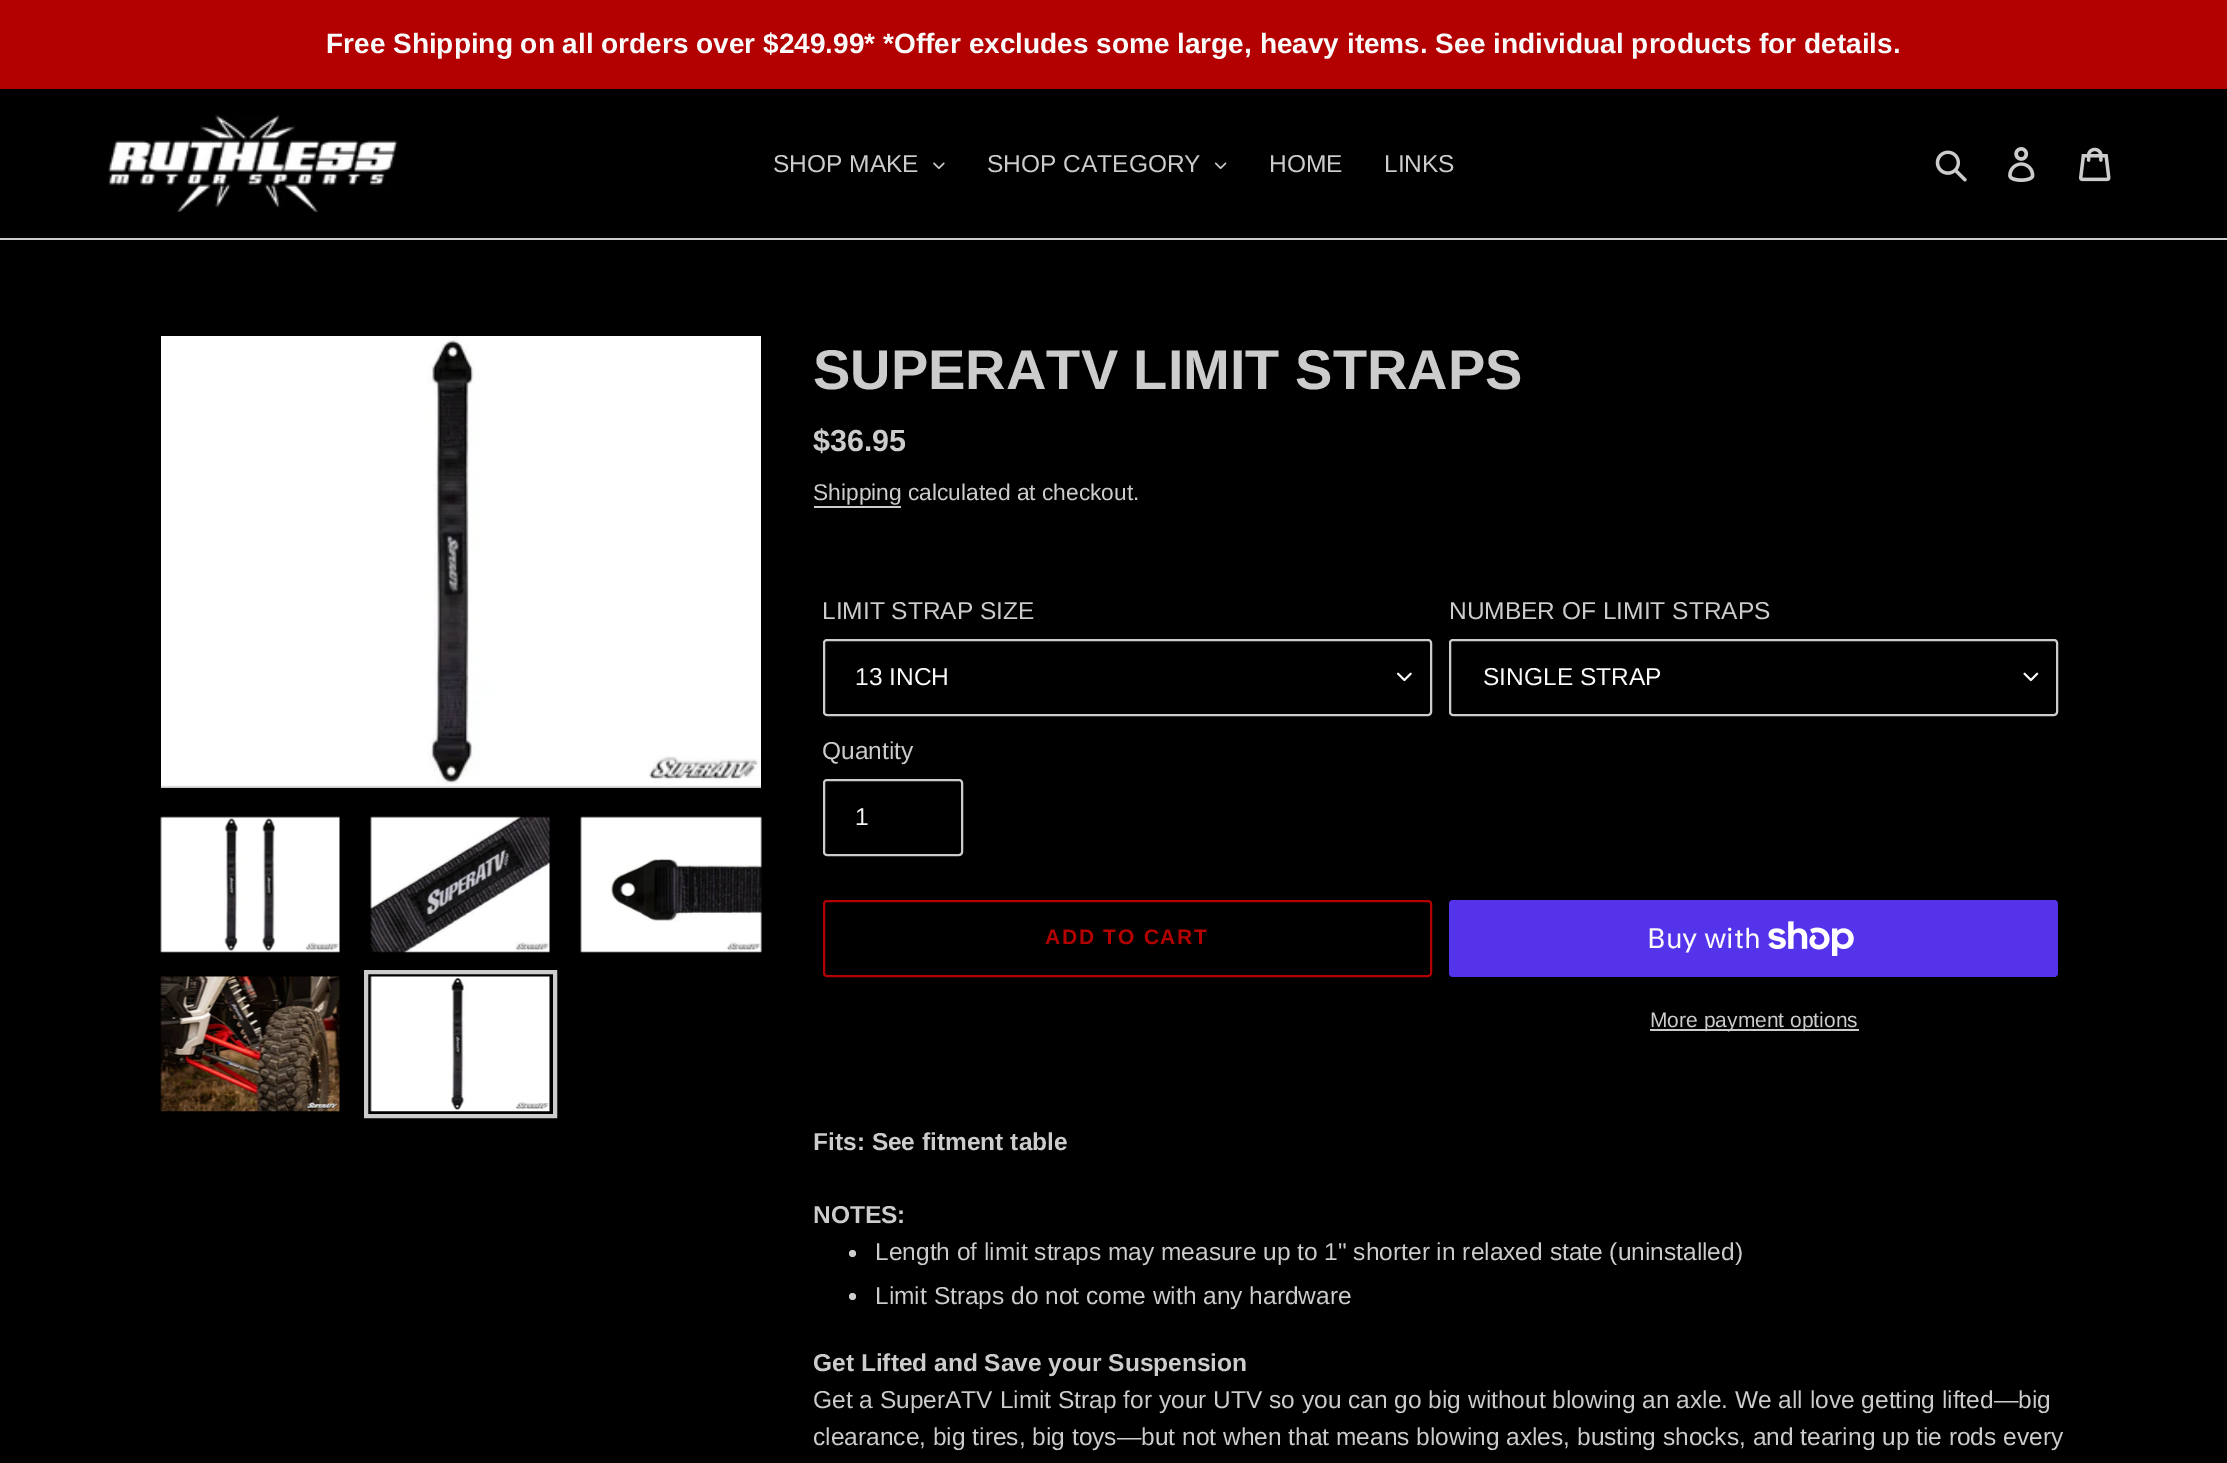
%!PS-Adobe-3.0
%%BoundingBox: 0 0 2227 1463
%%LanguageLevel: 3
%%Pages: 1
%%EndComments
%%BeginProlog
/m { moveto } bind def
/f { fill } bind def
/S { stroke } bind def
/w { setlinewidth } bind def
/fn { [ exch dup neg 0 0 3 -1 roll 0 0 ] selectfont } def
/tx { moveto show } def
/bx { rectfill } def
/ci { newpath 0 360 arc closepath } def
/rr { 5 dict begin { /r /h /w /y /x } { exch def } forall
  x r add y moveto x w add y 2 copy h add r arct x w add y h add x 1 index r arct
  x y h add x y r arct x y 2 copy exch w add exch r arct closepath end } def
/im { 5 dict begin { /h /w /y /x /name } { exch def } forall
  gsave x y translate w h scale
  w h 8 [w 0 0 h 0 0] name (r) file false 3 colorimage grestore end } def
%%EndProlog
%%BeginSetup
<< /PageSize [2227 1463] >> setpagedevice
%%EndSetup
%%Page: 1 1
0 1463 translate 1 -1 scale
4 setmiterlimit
0 setgray
0 0 2227 1463 bx
0.702 0 0 setrgbcolor
0 0 2227 89 bx
/LiberationSans-Bold 28 fn
0.98 setgray
(Free Shipping on all orders over $249.99* *Offer excludes some large, heavy items. See individual products for details.) 326 53 tx
0.8 setgray
0 238 2227 2 bx
(image0.raw) 108 115 290 97 im
/LiberationSans-Regular 24.5 fn
(SHOP MAKE) 773 172 tx
(image1.raw) 933 162 12 7 im
(SHOP CATEGORY) 987 172 tx
(image2.raw) 1215 162 12 7 im
(HOME) 1269 172 tx
(LINKS) 1384 172 tx
(image3.raw) 1935 150 32 32 im
(image4.raw) 2008 147 27 35 im
(image5.raw) 2079 147 32 35 im
(image6.raw) 161 336 600 452 im
(image7.raw) 160 816 180 137 im
(image8.raw) 370 816 180 137 im
(image9.raw) 580 816 182 137 im
(image10.raw) 160 976 180 136 im
4 w
366 972 189 144 rectstroke
(image11.raw) 370 976 180 136 im
/LiberationSans-Bold 56 fn
(SUPERATV LIMIT STRAPS) 813 389 tx
/LiberationSans-Bold 30.5 fn
($36.95) 813 451 tx
/LiberationSans-Regular 22.75 fn
(Shipping calculated at checkout.) 813 500 tx
814 506 87 2 bx
/LiberationSans-Regular 24.5 fn
(LIMIT STRAP SIZE) 822 619 tx
(image12.raw) 1397 672 15 10 im
2 w
824 640 607 75 3 rr S
0.98 setgray
(13 INCH) 855 685 tx
0.8 setgray
(NUMBER OF LIMIT STRAPS) 1449 619 tx
(image13.raw) 2023 672 16 10 im
1450 640 607 75 3 rr S
0.98 setgray
(SINGLE STRAP) 1483 685 tx
0.8 setgray
(Quantity) 822 759 tx
824 780 138 75 3 rr S
0.98 setgray
(1) 855 825 tx
0.702 0 0 setrgbcolor
824 901 607 75 3 rr S
/LiberationSans-Bold 21 fn
1045 944 m 1.75 0 (ADD TO CART) ashow
0.329 0.2 0.922 setrgbcolor
1449 900 609 77 4 rr f
/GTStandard-Regular 28 fn
0.98 setgray
(Buy with) 1647 948 tx
(image14.raw) 1768 921 86 35 im
0.8 setgray
1650 1029 209 2 bx
/LiberationSans-Regular 21 fn
(More payment options) 1650 1027 tx
/LiberationSans-Bold 24.5 fn
(Fits: See fitment table) 813 1150 tx
(NOTES:) 813 1223 tx
852.5 1253.5 3.5 ci f
/LiberationSans-Regular 24.5 fn
(Length of limit straps may measure up to 1" shorter in relaxed state \(uninstalled\)) 875 1260 tx
852.5 1296.5 3.5 ci f
(Limit Straps do not come with any hardware) 875 1304 tx
/LiberationSans-Bold 24.5 fn
(Get Lifted and Save your Suspension) 813 1371 tx
/LiberationSans-Regular 24.5 fn
(Get a SuperATV Limit Strap for your UTV so you can go big without blowing an axle. We all love getting lifted—big) 813 1408 tx
(clearance, big tires, big toys—but not when that means blowing axles, busting shocks, and tearing up tie rods every) 813 1445 tx
showpage
%%EOF
